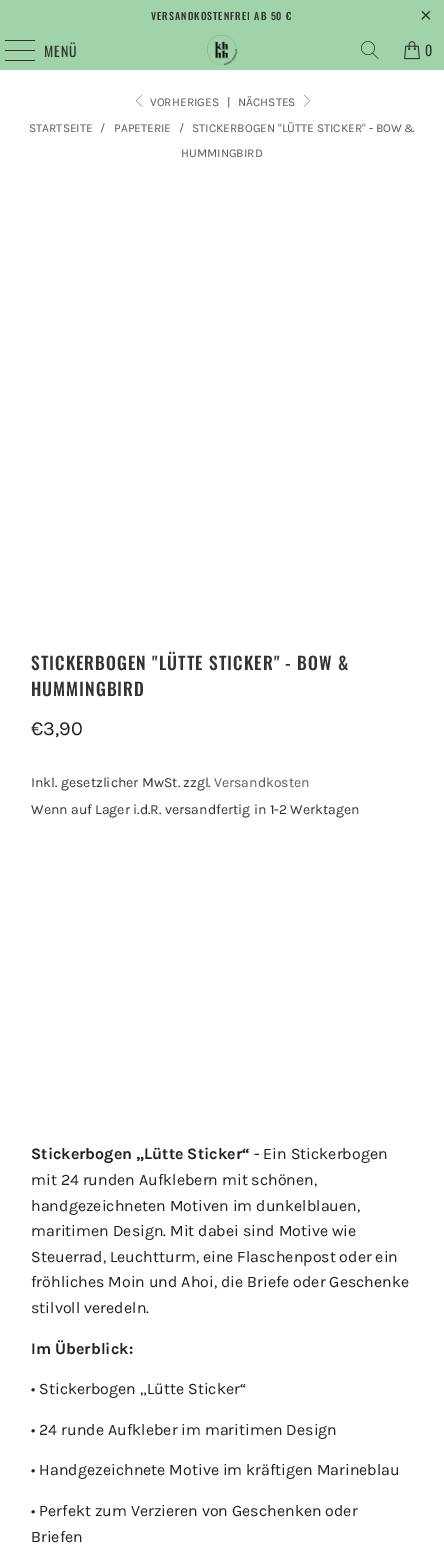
%!PS-Adobe-3.0
%%BoundingBox: 0 0 444 1558
%%LanguageLevel: 3
%%Pages: 1
%%EndComments
%%BeginProlog
/m { moveto } bind def
/f { fill } bind def
/fn { [ exch dup neg 0 0 3 -1 roll 0 0 ] selectfont } def
/tx { moveto show } def
/bx { rectfill } def
/rr { 5 dict begin { /r /h /w /y /x } { exch def } forall
  x r add y moveto x w add y 2 copy h add r arct x w add y h add x 1 index r arct
  x y h add x y r arct x y 2 copy exch w add exch r arct closepath end } def
/im { 5 dict begin { /h /w /y /x /name } { exch def } forall
  gsave x y translate w h scale
  w h 8 [w 0 0 h 0 0] name (r) file false 3 colorimage grestore end } def
%%EndProlog
%%BeginSetup
<< /PageSize [444 1558] >> setpagedevice
%%EndSetup
%%Page: 1 1
0 1558 translate 1 -1 scale
4 setmiterlimit
1 setgray
0 0 444 1558 bx
0.631 0.827 0.663 setrgbcolor
0 0 444 70 bx
/Oswald-Medium 10 fn
0.2 setgray
151 20 m 1 0 (VERSANDKOSTENFREI AB 50 €) ashow
/LiberationSans-Regular 20 fn
420 22 m 1 0 (×) ashow
5 40 30 1 0.5 rr f
5 50 30 1 0.5 rr f
5 60 30 1 0.5 rr f
/Oswald-Regular 14 fn
44 57 m 1 0 (MENÜ) ashow
(image0.raw) 207 35 31 30 im
(image1.raw) 361 41 18 18 im
(image2.raw) 404 41 16 19 im
425 56 m 1 0 (0) ashow
(image3.raw) 135 94 8 13 im
/Karla-Regular 12 fn
0.353 setgray
(VORHERIGES) 150 106 tx
(|) 227 106 tx
(NÄCHSTES) 238 106 tx
(image4.raw) 303 94 8 13 im
(STARTSEITE) 29 132 tx
(/) 100 132 tx
(PAPETERIE) 114 132 tx
(/) 179 132 tx
(STICKERBOGEN "LÜTTE STICKER" - BOW &) 192 132 tx
(HUMMINGBIRD) 181 157 tx
/Oswald-Medium 17.6 fn
0.2 setgray
31 670 m 1 0 (STICKERBOGEN "LÜTTE STICKER" - BOW &) ashow
31 696 m 1 0 (HUMMINGBIRD) ashow
/Karla-Regular 20 fn
0.129 setgray
(€3,90) 31 735 tx
/Karla-Regular 14 fn
0.2 setgray
(Inkl. gesetzlicher MwSt. zzgl.) 31 787 tx
0.353 setgray
(Versandkosten) 214 787 tx
0.2 setgray
(Wenn auf Lager i.d.R. versandfertig in 1-2 Werktagen) 31 814 tx
/Karla-Bold 16 fn
0.129 setgray
(Stickerbogen „Lütte Sticker“) 31 1159 tx
/Karla-Regular 16 fn
(- Ein Stickerbogen) 254 1159 tx
(mit 24 runden Aufklebern mit schönen,) 31 1185 tx
(handgezeichneten Motiven im dunkelblauen,) 31 1211 tx
(maritimen Design. Mit dabei sind Motive wie) 31 1236 tx
(Steuerrad, Leuchtturm, eine Flaschenpost oder ein) 31 1262 tx
(fröhliches Moin und Ahoi, die Briefe oder Geschenke) 31 1287 tx
(stilvoll veredeln.) 31 1313 tx
/Karla-Bold 16 fn
(Im Überblick:) 31 1354 tx
/Karla-Regular 16 fn
(• Stickerbogen „Lütte Sticker“) 31 1394 tx
(• 24 runde Aufkleber im maritimen Design) 31 1435 tx
(• Handgezeichnete Motive im kräftigen Marineblau) 31 1475 tx
(• Perfekt zum Verzieren von Geschenken oder) 31 1516 tx
(Briefen) 31 1542 tx
showpage
%%EOF
